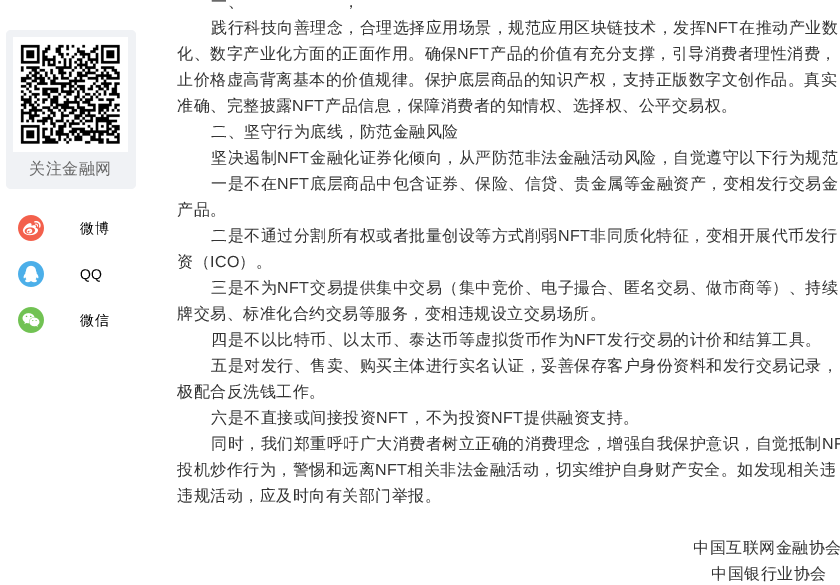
%!PS-Adobe-3.0
%%BoundingBox: 0 0 840 585
%%LanguageLevel: 3
%%Pages: 1
%%EndComments
%%BeginProlog
/m { moveto } bind def
/f { fill } bind def
/q { gsave } bind def
/Q { grestore } bind def
/fn { [ exch dup neg 0 0 3 -1 roll 0 0 ] selectfont } def
/bx { rectfill } def
/rr { 5 dict begin { /r /h /w /y /x } { exch def } forall
  x r add y moveto x w add y 2 copy h add r arct x w add y h add x 1 index r arct
  x y h add x y r arct x y 2 copy exch w add exch r arct closepath end } def
/im { 5 dict begin { /h /w /y /x /name } { exch def } forall
  gsave x y translate w h scale
  w h 8 [w 0 0 h 0 0] name (r) file false 3 colorimage grestore end } def
%%EndProlog
%%BeginSetup
<< /PageSize [840 585] >> setpagedevice
%%EndSetup
%%Page: 1 1
0 585 translate 1 -1 scale
4 setmiterlimit
1 setgray
0 0 840 585 bx
0.941 0.949 0.961 setrgbcolor
6 30 130 159 5 rr f
(image0.raw) 13 37 115 115 im
/WenQuanYiZenHei-Medium 16 fn
0.4 setgray
29 174 m 0.5 0 (关注金融网) ashow
(image1.raw) 18 215 26 26 im
/WenQuanYiZenHei-Medium 14 fn
0 setgray
80 233 m 0.5 0 (微博) ashow
(image2.raw) 18 261 26 26 im
/LiberationSans-Regular 14 fn
80 279 m 0.5 0 (QQ) ashow
(image3.raw) 18 307 26 26 im
/WenQuanYiZenHei-Medium 14 fn
80 325 m 0.5 0 (微信) ashow
/WenQuanYiZenHei-Medium 16 fn
0.2 setgray
211 7 m 0.5 0 (一、) ashow
343 7 m 0.5 0 (，) ashow
211 33 m 0.5 0 (践行科技向善理念，合理选择应用场景，规范应用区块链技术，发挥) ashow
/LiberationSans-Regular 16 fn
706 33 m 0.5 0 (NFT) ashow
/WenQuanYiZenHei-Medium 16 fn
739 33 m 0.5 0 (在推动产业数) ashow
177 59 m 0.5 0 (化、数字产业化方面的正面作用。确保) ashow
/LiberationSans-Regular 16 fn
457 59 m 0.5 0 (NFT) ashow
/WenQuanYiZenHei-Medium 16 fn
490 59 m 0.5 0 (产品的价值有充分支撑，引导消费者理性消费，) ashow
177 85 m 0.5 0 (止价格虚高背离基本的价值规律。保护底层商品的知识产权，支持正版数字文创作品。真实) ashow
177 111 m 0.5 0 (准确、完整披露) ashow
/LiberationSans-Regular 16 fn
292 111 m 0.5 0 (NFT) ashow
/WenQuanYiZenHei-Medium 16 fn
325 111 m 0.5 0 (产品信息，保障消费者的知情权、选择权、公平交易权。) ashow
211 137 m 0.5 0 (二、坚守行为底线，防范金融风险) ashow
211 163 m 0.5 0 (坚决遏制) ashow
/LiberationSans-Regular 16 fn
277 163 m 0.5 0 (NFT) ashow
/WenQuanYiZenHei-Medium 16 fn
310 163 m 0.5 0 (金融化证券化倾向，从严防范非法金融活动风险，自觉遵守以下行为规范) ashow
211 189 m 0.5 0 (一是不在) ashow
/LiberationSans-Regular 16 fn
277 189 m 0.5 0 (NFT) ashow
/WenQuanYiZenHei-Medium 16 fn
310 189 m 0.5 0 (底层商品中包含证券、保险、信贷、贵金属等金融资产，变相发行交易金) ashow
177 215 m 0.5 0 (产品。) ashow
211 241 m 0.5 0 (二是不通过分割所有权或者批量创设等方式削弱) ashow
/LiberationSans-Regular 16 fn
558 241 m 0.5 0 (NFT) ashow
/WenQuanYiZenHei-Medium 16 fn
590 241 m 0.5 0 (非同质化特征，变相开展代币发行) ashow
177 267 m 0.5 0 (资（) ashow
/LiberationSans-Regular 16 fn
210 267 m 0.5 0 (ICO) ashow
/WenQuanYiZenHei-Medium 16 fn
239 267 m 0.5 0 (）。) ashow
211 293 m 0.5 0 (三是不为) ashow
/LiberationSans-Regular 16 fn
277 293 m 0.5 0 (NFT) ashow
/WenQuanYiZenHei-Medium 16 fn
310 293 m 0.5 0 (交易提供集中交易（集中竞价、电子撮合、匿名交易、做市商等）、持续) ashow
177 319 m 0.5 0 (牌交易、标准化合约交易等服务，变相违规设立交易场所。) ashow
211 345 m 0.5 0 (四是不以比特币、以太币、泰达币等虚拟货币作为) ashow
/LiberationSans-Regular 16 fn
574 345 m 0.5 0 (NFT) ashow
/WenQuanYiZenHei-Medium 16 fn
607 345 m 0.5 0 (发行交易的计价和结算工具。) ashow
211 371 m 0.5 0 (五是对发行、售卖、购买主体进行实名认证，妥善保存客户身份资料和发行交易记录，) ashow
177 397 m 0.5 0 (极配合反洗钱工作。) ashow
211 423 m 0.5 0 (六是不直接或间接投资) ashow
/LiberationSans-Regular 16 fn
376 423 m 0.5 0 (NFT) ashow
/WenQuanYiZenHei-Medium 16 fn
409 423 m 0.5 0 (，不为投资) ashow
/LiberationSans-Regular 16 fn
491 423 m 0.5 0 (NFT) ashow
/WenQuanYiZenHei-Medium 16 fn
524 423 m 0.5 0 (提供融资支持。) ashow
211 449 m 0.5 0 (同时，我们郑重呼吁广大消费者树立正确的消费理念，增强自我保护意识，自觉抵制) ashow
/LiberationSans-Regular 16 fn
822 449 m 0.5 0 (NF) ashow
q
177 0 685 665 rectclip
/WenQuanYiZenHei-Medium 16 fn
177 475 m 0.5 0 (投机炒作行为，警惕和远离) ashow
Q
375 475 m 0.5 0 (NFT) ashow
/WenQuanYiZenHei-Medium 16 fn
407 475 m 0.5 0 (相关非法金融活动，切实维护自身财产安全。如发现相关违) ashow
177 501 m 0.5 0 (违规活动，应及时向有关部门举报。) ashow
693 553 m 0.5 0 (中国互联网金融协会) ashow
711 579 m 0.5 0 (中国银行业协会) ashow
showpage
%%EOF
